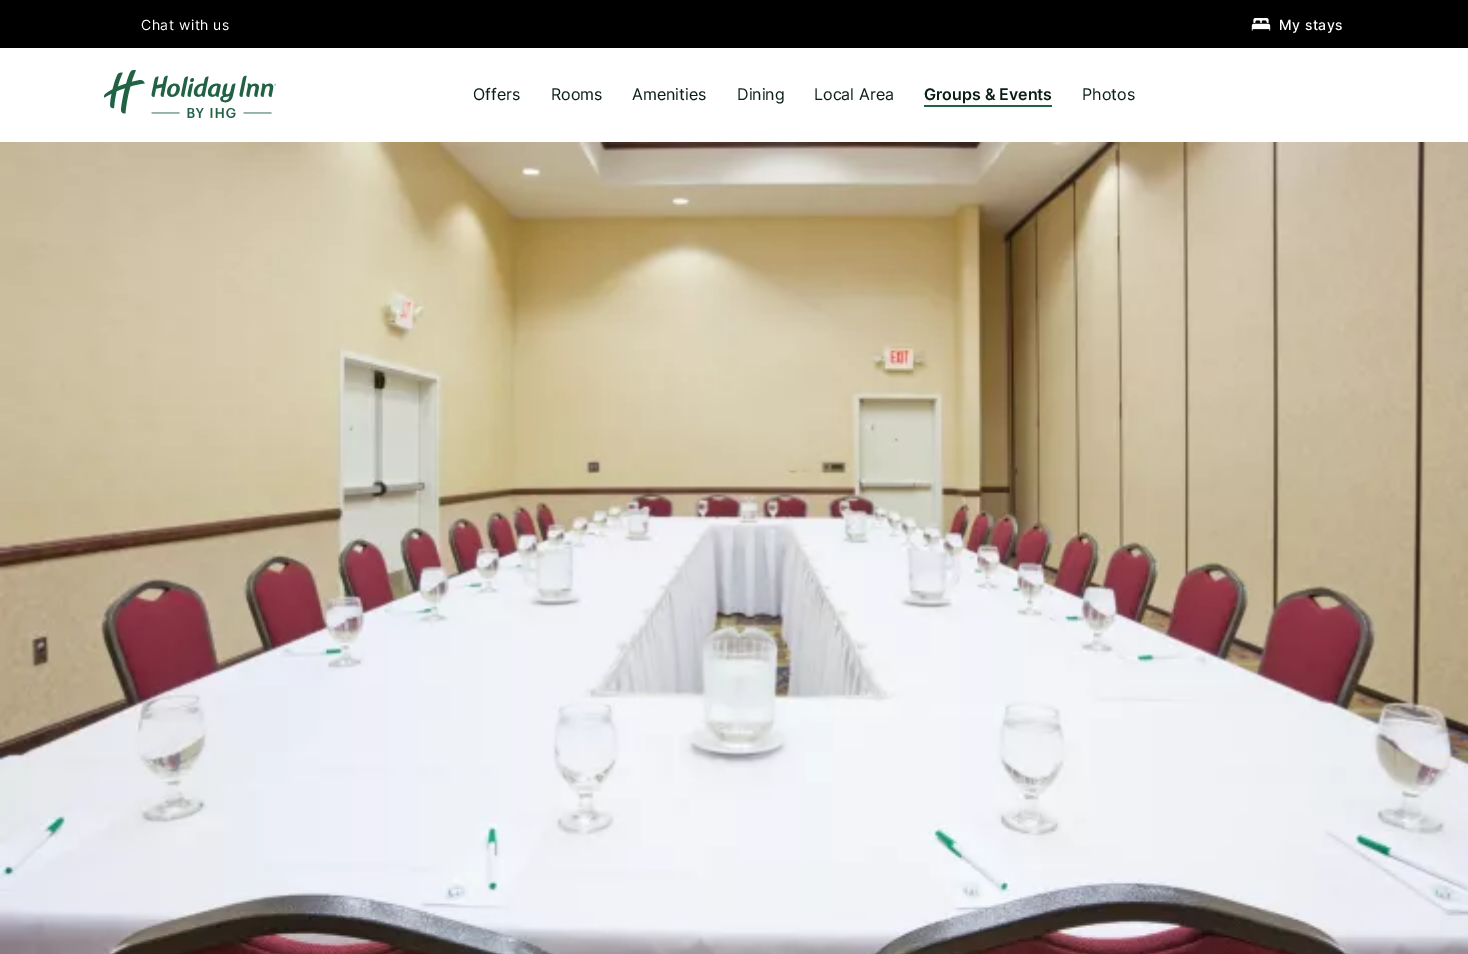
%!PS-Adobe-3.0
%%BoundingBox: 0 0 1468 954
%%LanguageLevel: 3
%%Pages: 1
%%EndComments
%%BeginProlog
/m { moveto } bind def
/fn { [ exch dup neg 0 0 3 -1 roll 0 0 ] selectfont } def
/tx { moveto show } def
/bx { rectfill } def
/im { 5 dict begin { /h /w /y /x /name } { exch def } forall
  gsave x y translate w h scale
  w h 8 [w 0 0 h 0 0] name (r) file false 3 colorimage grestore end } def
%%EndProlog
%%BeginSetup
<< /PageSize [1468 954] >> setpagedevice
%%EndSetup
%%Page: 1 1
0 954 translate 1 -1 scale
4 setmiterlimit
1 setgray
0 0 1468 954 bx
0 setgray
0 0 1468 48 bx
/Inter-Regular 14 fn
1 setgray
141 30 m 0.5 0 (Chat with us) ashow
(image0.raw) 1251 18 20 13 im
/Inter-Medium 14 fn
1279 30 m 0.5 0 (My stays) ashow
(image1.raw) 104 70 172 48 im
/Inter-Regular 16 fn
0.039 0.118 0.078 setrgbcolor
(Offers) 473 100 tx
(Rooms) 551 100 tx
(Amenities) 632 100 tx
(Dining) 737 100 tx
(Local Area) 814 100 tx
/Inter-SemiBold 16 fn
(Groups & Events) 924 100 tx
0.129 0.384 0.271 setrgbcolor
924 105 128 2 bx
/Inter-Regular 16 fn
0.039 0.118 0.078 setrgbcolor
(Photos) 1082 100 tx
(image2.raw) 0 142 1468 812 im
showpage
%%EOF
